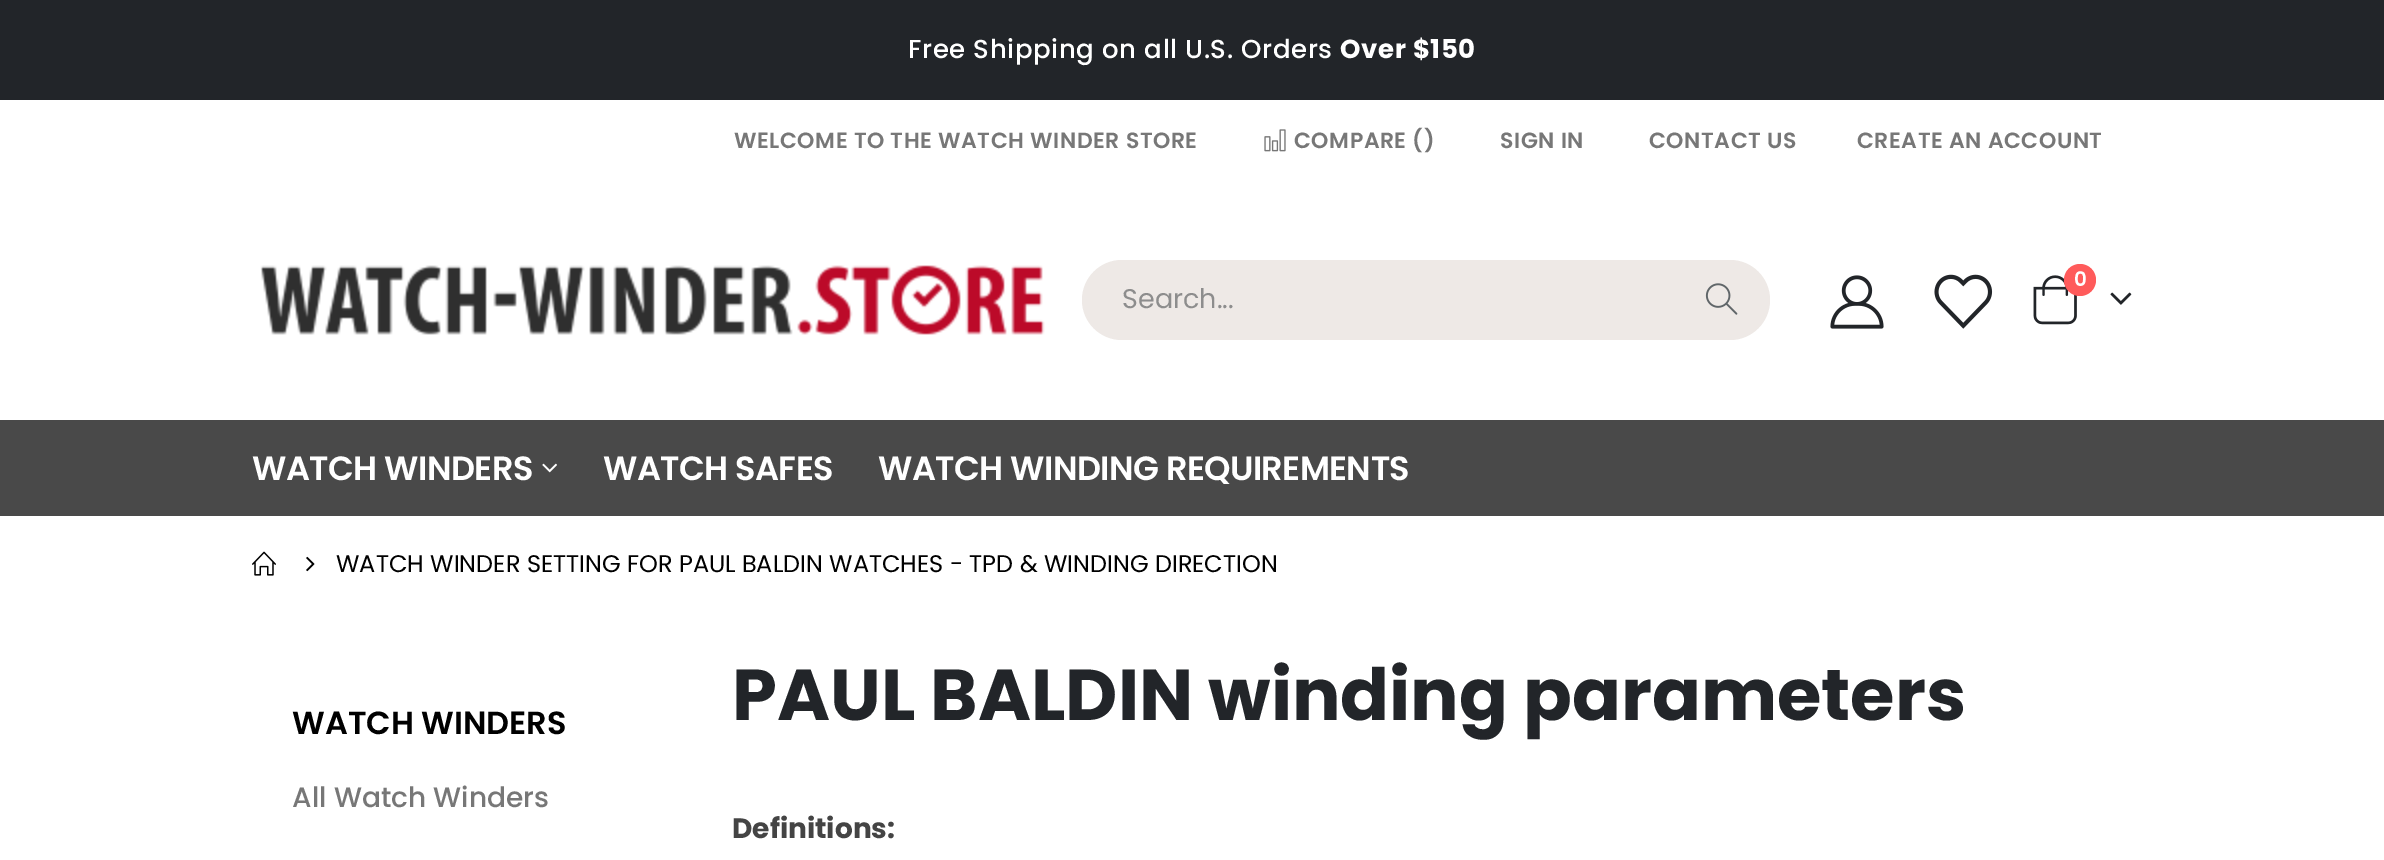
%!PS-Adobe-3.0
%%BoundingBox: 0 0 2384 860
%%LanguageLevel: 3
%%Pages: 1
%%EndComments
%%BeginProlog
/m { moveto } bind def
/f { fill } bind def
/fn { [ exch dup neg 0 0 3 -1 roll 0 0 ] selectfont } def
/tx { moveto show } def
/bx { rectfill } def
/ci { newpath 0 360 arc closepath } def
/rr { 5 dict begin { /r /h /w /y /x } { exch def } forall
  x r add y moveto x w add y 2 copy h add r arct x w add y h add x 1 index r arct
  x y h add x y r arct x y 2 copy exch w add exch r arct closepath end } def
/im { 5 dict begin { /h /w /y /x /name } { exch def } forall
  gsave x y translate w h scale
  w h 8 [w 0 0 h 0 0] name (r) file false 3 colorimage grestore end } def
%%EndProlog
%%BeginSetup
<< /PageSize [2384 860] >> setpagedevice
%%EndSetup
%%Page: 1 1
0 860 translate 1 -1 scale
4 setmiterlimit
1 setgray
0 0 2384 860 bx
0.133 0.145 0.161 setrgbcolor
0 0 2384 100 bx
/Poppins-Medium 26 fn
1 setgray
908 58 m 0.65 0 (Free Shipping on all U.S. Orders) ashow
/Poppins-Bold 26 fn
1340 58 m 0.65 0 (Over $150) ashow
/Poppins-SemiBold 22 fn
0.467 setgray
734 148 m 0.55 0 (WELCOME TO THE WATCH WINDER STORE) ashow
(image0.raw) 1264 129 22 23 im
1294 148 m 0.55 0 (COMPARE \(\)) ashow
1500 148 m 0.55 0 (SIGN IN) ashow
1649 148 m 0.55 0 (CONTACT US) ashow
1857 148 m 0.55 0 (CREATE AN ACCOUNT) ashow
(image1.raw) 260 265 785 70 im
(image2.raw) 1830 275 54 54 im
(image3.raw) 1934 274 59 55 im
(image4.raw) 2033 275 44 50 im
1 0.357 0.357 setrgbcolor
2080 280 16 ci f
/Poppins-SemiBold 20 fn
1 setgray
(0) 2074 286 tx
(image5.raw) 2110 292 22 13 im
0.933 0.914 0.902 setrgbcolor
1082 260 688 80 40 rr f
/Poppins-Regular 27 fn
0.553 setgray
(Search...) 1122 308 tx
(image6.raw) 1705 283 33 32 im
0.286 setgray
0 420 2384 96 bx
/Poppins-SemiBold 33.6 fn
1 setgray
252 480 m -0.6 0 (WATCH WINDERS) ashow
(image7.raw) 542 463 15 10 im
603 480 m -0.6 0 (WATCH SAFES) ashow
878 480 m -0.6 0 (WATCH WINDING REQUIREMENTS) ashow
(image8.raw) 252 551 24 25 im
(image9.raw) 306 556 9 16 im
/Poppins-Regular 24 fn
0 setgray
(WATCH WINDER SETTING FOR PAUL BALDIN WATCHES - TPD & WINDING DIRECTION) 336 572 tx
/Poppins-SemiBold 32 fn
(WATCH WINDERS) 292 734 tx
/Poppins-Medium 28 fn
0.467 setgray
(All Watch Winders) 292 807 tx
/Poppins-Bold 72 fn
0.133 0.145 0.161 setrgbcolor
(PAUL BALDIN winding parameters) 732 720 tx
/Poppins-Bold 28 fn
0.267 setgray
(Definitions:) 732 838 tx
showpage
%%EOF
